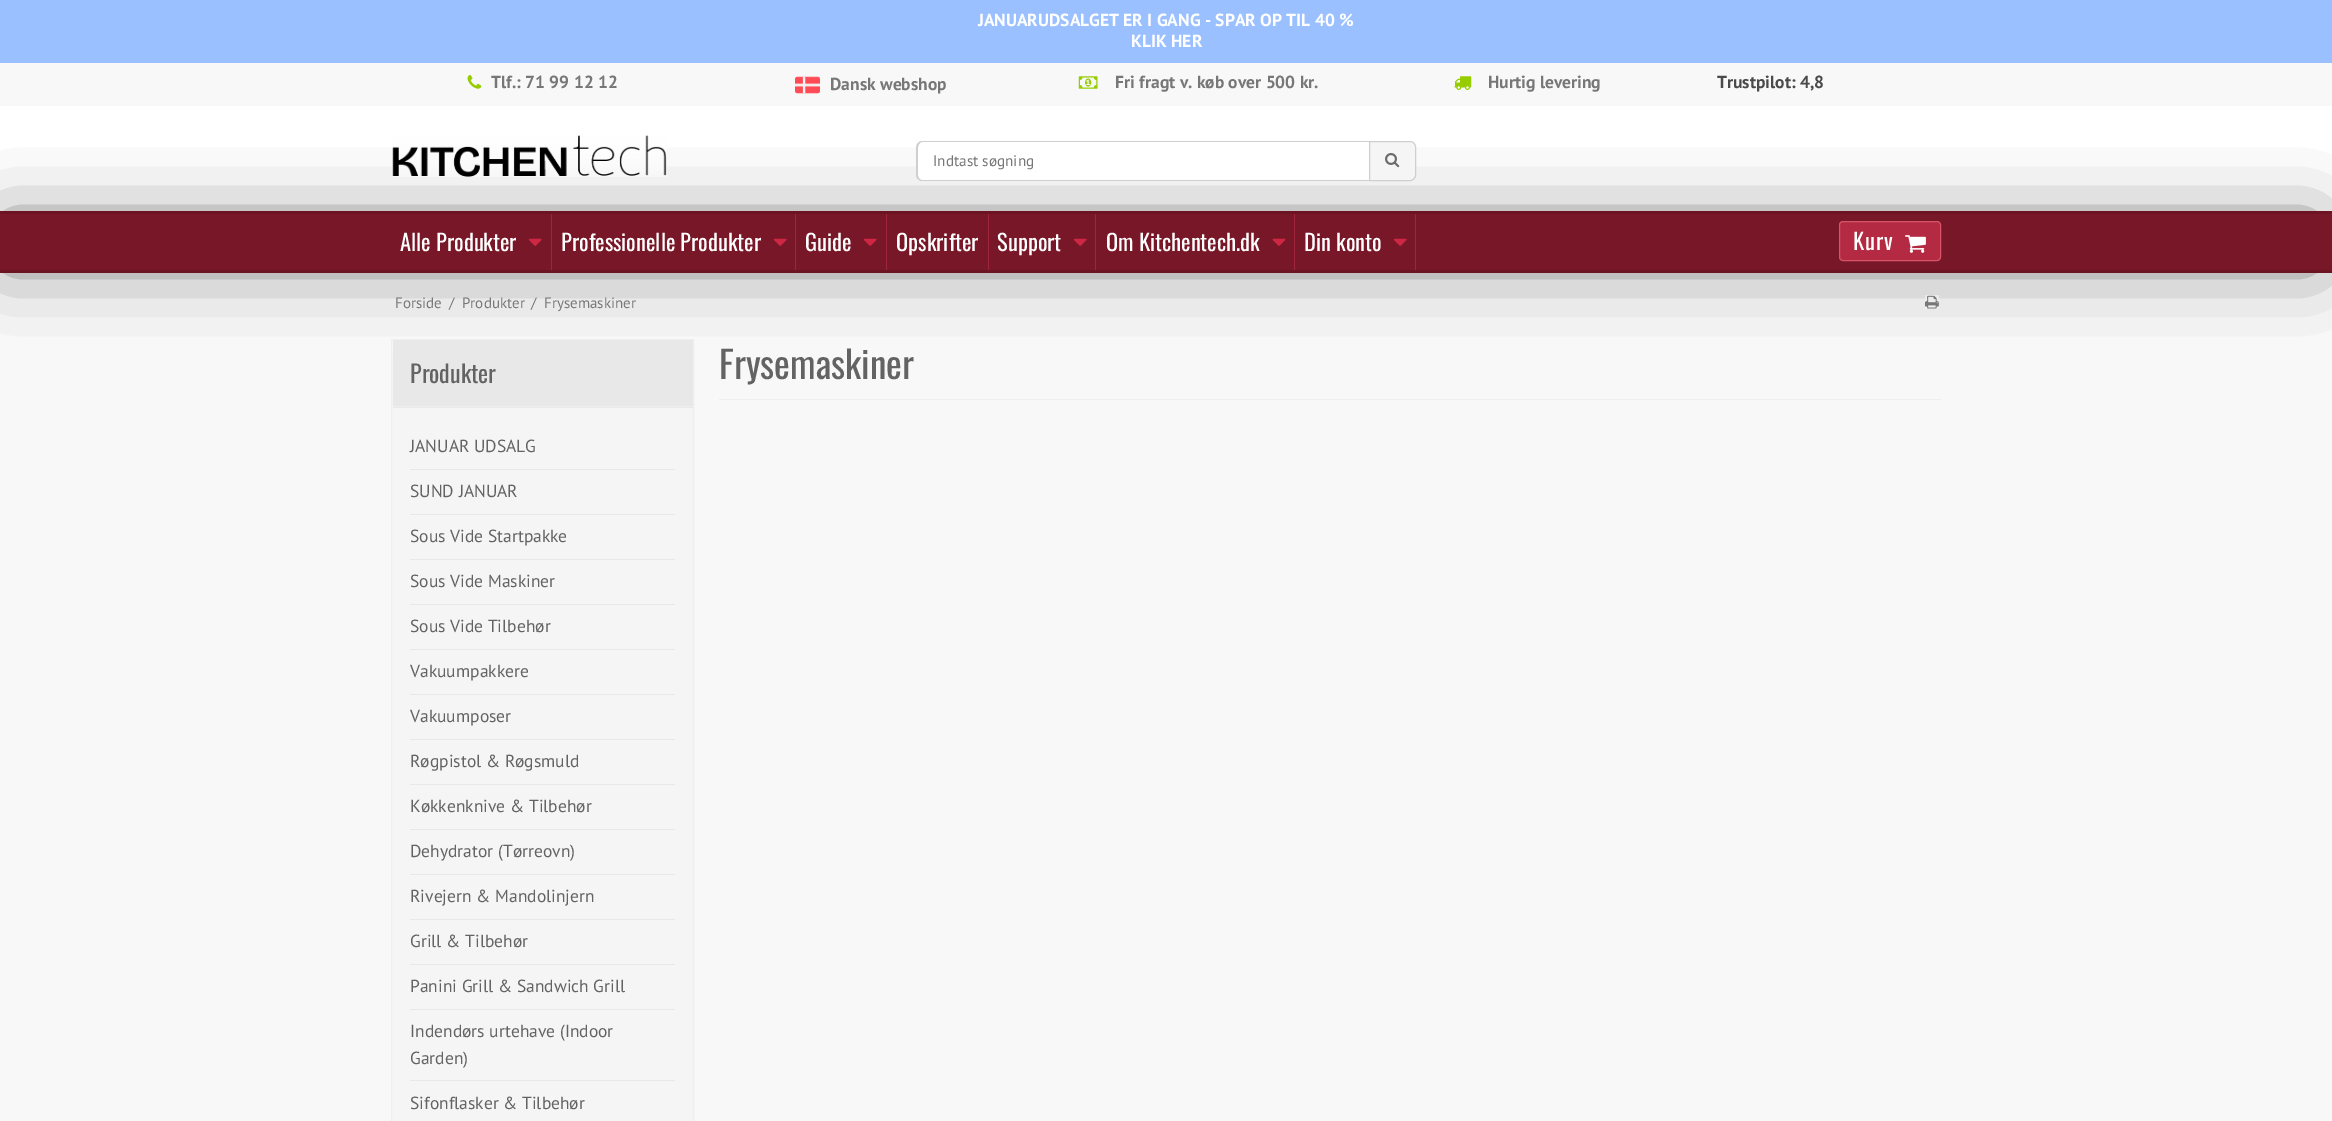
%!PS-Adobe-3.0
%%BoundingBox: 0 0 2332 1121
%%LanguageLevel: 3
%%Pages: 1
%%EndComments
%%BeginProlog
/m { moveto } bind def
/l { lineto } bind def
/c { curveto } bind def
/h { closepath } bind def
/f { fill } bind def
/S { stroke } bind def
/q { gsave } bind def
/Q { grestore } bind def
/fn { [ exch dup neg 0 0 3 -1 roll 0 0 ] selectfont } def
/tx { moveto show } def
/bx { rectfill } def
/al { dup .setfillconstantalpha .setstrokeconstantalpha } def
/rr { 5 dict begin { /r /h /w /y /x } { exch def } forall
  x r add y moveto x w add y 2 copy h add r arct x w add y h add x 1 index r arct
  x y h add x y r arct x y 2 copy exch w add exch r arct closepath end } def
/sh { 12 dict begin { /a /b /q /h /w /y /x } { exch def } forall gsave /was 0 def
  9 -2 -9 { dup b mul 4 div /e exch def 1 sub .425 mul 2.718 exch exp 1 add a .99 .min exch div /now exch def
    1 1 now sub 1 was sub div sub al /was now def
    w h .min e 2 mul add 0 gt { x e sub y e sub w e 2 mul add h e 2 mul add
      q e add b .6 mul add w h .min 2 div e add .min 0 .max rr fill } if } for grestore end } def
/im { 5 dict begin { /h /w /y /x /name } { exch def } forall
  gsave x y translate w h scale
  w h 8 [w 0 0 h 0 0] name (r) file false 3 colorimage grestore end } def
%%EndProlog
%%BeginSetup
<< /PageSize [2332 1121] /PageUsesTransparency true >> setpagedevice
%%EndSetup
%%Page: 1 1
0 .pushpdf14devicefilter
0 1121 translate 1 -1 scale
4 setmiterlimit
0.973 setgray
0 0 2332 1121 bx
0.604 0.753 1 setrgbcolor
0 0 2332 63 bx
/PTSans-Bold 17.5 fn
1 setgray
(JANUARUDSALGET ER I GANG - SPAR OP TIL 40 %) 978 26 tx
(KLIK HER) 1131 47 tx
(image0.raw) 467 75 15 14 im
0.467 setgray
(Tlf.: 71 99 12 12) 491 88 tx
(image1.raw) 795 76 25 18 im
(Dansk webshop) 830 90 tx
(image2.raw) 1078 76 20 13 im
(Fri fragt v. køb over 500 kr.) 1115 88 tx
(image3.raw) 1454 76 18 14 im
(Hurtig levering) 1488 88 tx
0.29 setgray
(Trustpilot: 4,8) 1717 88 tx
1 setgray
0 106 2332 105 bx
0 setgray
15 233 2290 18 0 38 0.75 sh
(image4.raw) 392 135 275 42 im
1 setgray
922 142 m 1376 142 l 1380 142 1382 145 1382 148 c 1382 175 l 1382 178 1380 180 1376 180 c 922 180 l 920 180 918 178 918 175 c 918 148 l 918 145 920 142 922 142 c h f
0.812 setgray
922 141 m 1376 141 l 1380 141 1382 144 1382 148 c 1382 175 l 1382 178 1380 181 1376 181 c 922 181 l 919 181 916 178 916 175 c 916 148 l 916 144 919 141 922 141 c h 922 142 m 1376 142 l 1380 142 1382 145 1382 148 c 1382 175 l 1382 178 1380 180 1376 180 c 922 180 l 920 180 918 178 918 175 c 918 148 l 918 145 920 142 922 142 c h eofill
/PTSans-Regular 15.25 fn
0.467 setgray
(Indtast søgning) 933 166 tx
0.961 setgray
1369.5 141.5 m 1410 141.5 l 1413 141.5 1415.5 144 1415.5 147 c 1415.5 175 l 1415.5 178 1413 180.5 1410 180.5 c 1369.5 180.5 l h q f Q
0.812 setgray
S
(image5.raw) 1385 153 15 15 im
0.471 0.09 0.153 setrgbcolor
0 214 2332 56 bx
0.427 0.078 0.133 setrgbcolor
0 211 2332 3 bx
0 270 2332 3 bx
0.624 0.145 0.231 setrgbcolor
551 214 1 56 bx
/Oswald-Regular 22.5 fn
1 setgray
(Alle Produkter) 400 251 tx
(image6.raw) 528 238 14 8 im
0.624 0.145 0.231 setrgbcolor
795 214 1 56 bx
1 setgray
(Professionelle Produkter) 561 251 tx
(image6.raw) 773 238 14 8 im
0.624 0.145 0.231 setrgbcolor
886 214 1 56 bx
1 setgray
(Guide) 805 251 tx
(image6.raw) 863 238 14 8 im
0.624 0.145 0.231 setrgbcolor
988 214 1 56 bx
1 setgray
(Opskrifter) 896 251 tx
0.624 0.145 0.231 setrgbcolor
1095 214 1 56 bx
1 setgray
(Support) 997 251 tx
(image6.raw) 1073 238 14 8 im
0.624 0.145 0.231 setrgbcolor
1294 214 1 56 bx
1 setgray
(Om Kitchentech.dk) 1106 251 tx
(image7.raw) 1272 238 14 8 im
0.624 0.145 0.231 setrgbcolor
1415 214 1 56 bx
1 setgray
(Din konto) 1304 251 tx
(image6.raw) 1393 238 14 8 im
0.702 0.165 0.259 setrgbcolor
1839.5 221.5 101 39 3.5 rr q f Q
0.843 0.325 0.416 setrgbcolor
S
1 setgray
1853 250 m 1 0 (Kurv) ashow
(image8.raw) 1905 235 21 18 im
/PTSans-Regular 15 fn
0.467 setgray
(Forside) 395 308 tx
(/) 449 308 tx
(Produkter) 462 308 tx
(/) 531 308 tx
(Frysemaskiner) 544 308 tx
(image9.raw) 1925 295 14 14 im
0.961 setgray
392 356 301 765 bx
0.933 setgray
391.5 339.5 302 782 rectstroke
0.91 setgray
393 340 300 68 bx
0.933 setgray
393 406 300 1 bx
/Oswald-Regular 24 fn
0.388 setgray
(Produkter) 410 383 tx
0.91 setgray
410 469 265 1 bx
/PTSans-Regular 17.5 fn
0.388 setgray
(JANUAR UDSALG) 410 452 tx
0.91 setgray
410 514 265 1 bx
0.388 setgray
(SUND JANUAR) 410 497 tx
0.91 setgray
410 559 265 1 bx
0.388 setgray
(Sous Vide Startpakke) 410 542 tx
0.91 setgray
410 604 265 1 bx
0.388 setgray
(Sous Vide Maskiner) 410 587 tx
0.91 setgray
410 649 265 1 bx
0.388 setgray
(Sous Vide Tilbehør) 410 632 tx
0.91 setgray
410 694 265 1 bx
0.388 setgray
(Vakuumpakkere) 410 677 tx
0.91 setgray
410 739 265 1 bx
0.388 setgray
(Vakuumposer) 410 722 tx
0.91 setgray
410 784 265 1 bx
0.388 setgray
(Røgpistol & Røgsmuld) 410 767 tx
0.91 setgray
410 829 265 1 bx
0.388 setgray
(Køkkenknive & Tilbehør) 410 812 tx
0.91 setgray
410 874 265 1 bx
0.388 setgray
(Dehydrator \(Tørreovn\)) 410 857 tx
0.91 setgray
410 919 265 1 bx
0.388 setgray
(Rivejern & Mandolinjern) 410 902 tx
0.91 setgray
410 964 265 1 bx
0.388 setgray
(Grill & Tilbehør) 410 947 tx
0.91 setgray
410 1009 265 1 bx
0.388 setgray
(Panini Grill & Sandwich Grill) 410 992 tx
0.91 setgray
410 1080 265 1 bx
0.388 setgray
(Indendørs urtehave \(Indoor) 410 1037 tx
(Garden\)) 410 1064 tx
(Sifonflasker & Tilbehør) 410 1109 tx
0.933 setgray
719 399 1222 1 bx
/Oswald-Regular 37.5 fn
0.388 setgray
(Frysemaskiner) 719 379 tx
.poppdf14devicefilter showpage
%%EOF
